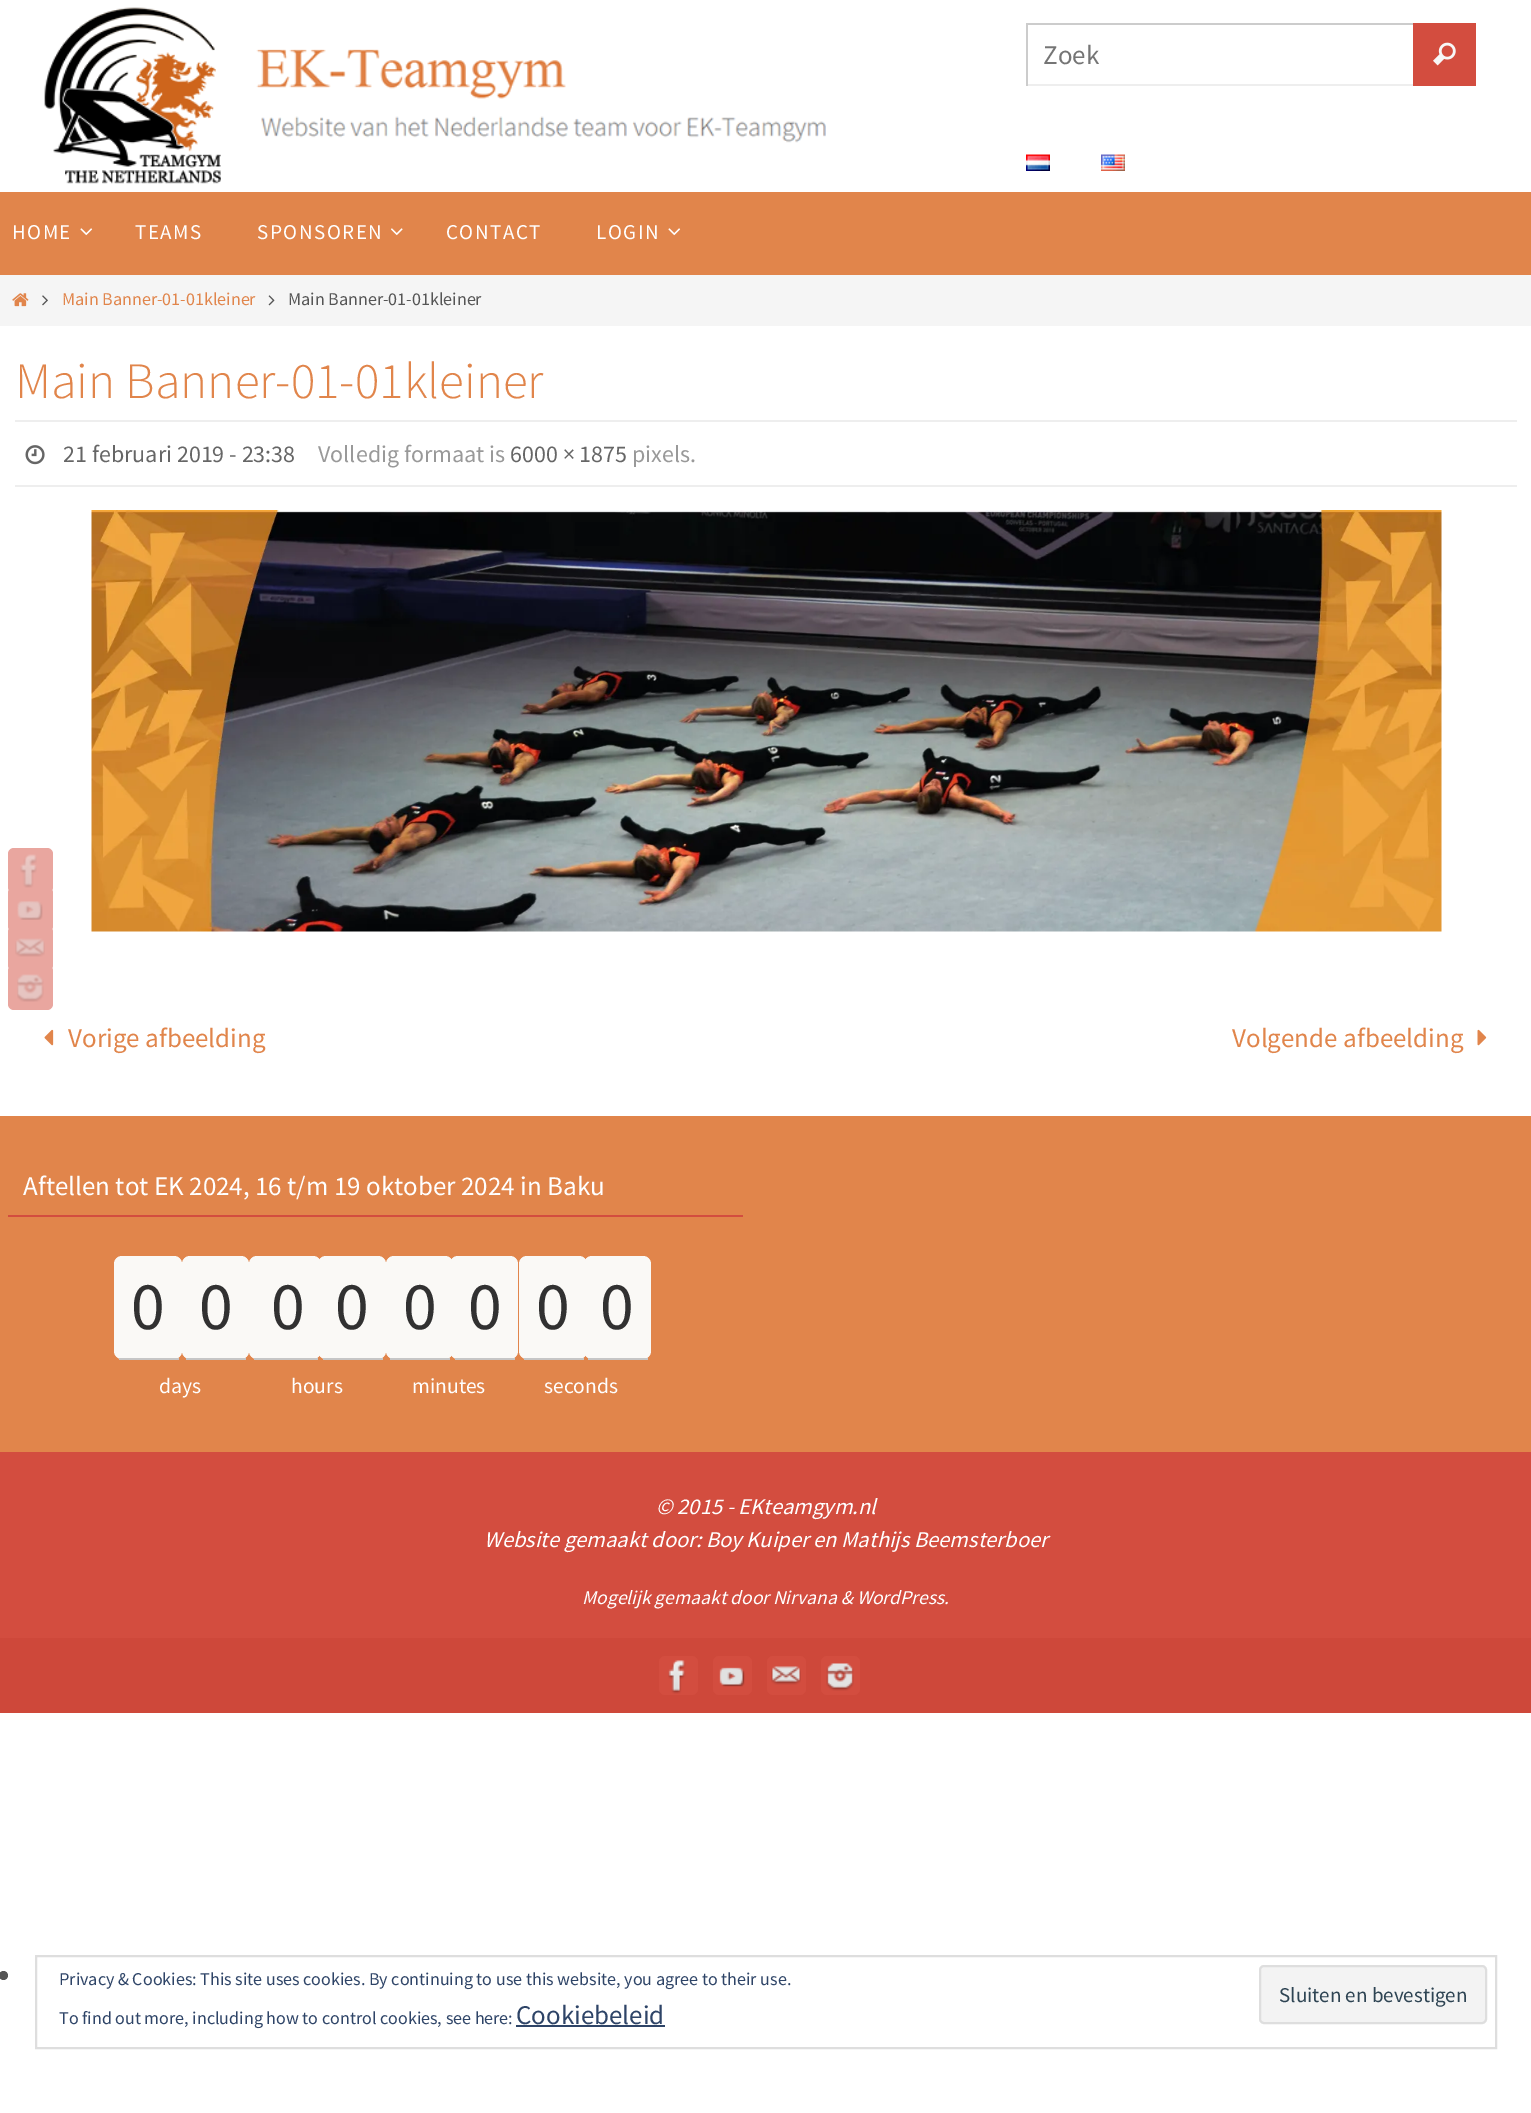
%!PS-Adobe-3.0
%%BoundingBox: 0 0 1531 2113
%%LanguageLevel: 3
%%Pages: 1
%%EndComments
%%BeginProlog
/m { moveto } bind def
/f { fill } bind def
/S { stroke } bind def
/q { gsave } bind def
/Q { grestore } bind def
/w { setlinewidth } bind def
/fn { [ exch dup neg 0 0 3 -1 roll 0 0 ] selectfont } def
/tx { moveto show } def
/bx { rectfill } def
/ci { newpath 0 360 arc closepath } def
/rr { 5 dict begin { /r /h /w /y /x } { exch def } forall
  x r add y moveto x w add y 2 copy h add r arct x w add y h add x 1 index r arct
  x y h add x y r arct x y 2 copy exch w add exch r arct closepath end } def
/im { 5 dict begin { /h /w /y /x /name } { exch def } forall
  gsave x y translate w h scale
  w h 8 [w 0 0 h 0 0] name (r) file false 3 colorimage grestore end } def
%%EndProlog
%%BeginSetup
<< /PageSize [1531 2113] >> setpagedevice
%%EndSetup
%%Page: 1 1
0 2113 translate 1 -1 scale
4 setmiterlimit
1 setgray
0 0 1531 2113 bx
(image0.raw) 44 7 782 177 im
0.827 0.302 0.247 setrgbcolor
1413 23 63 63 bx
0.8 setgray
1026 23 387 2 bx
0.933 setgray
1026 84 387 2 bx
0.8 setgray
1026 23 2 63 bx
/SourceSansPro-Regular 27 fn
0.459 setgray
(Zoek) 1043 64 tx
(image1.raw) 1433 42 23 24 im
(image2.raw) 1026 154 24 17 im
(image3.raw) 1101 154 24 17 im
0.882 0.522 0.294 setrgbcolor
0 192 1531 83 bx
/SourceSansPro-Regular 21 fn
1 setgray
12 239 m 1.5 0 (HOME) ashow
(image4.raw) 80 228 13 8 im
135 239 m 1.5 0 (TEAMS) ashow
257 239 m 1.5 0 (SPONSOREN) ashow
(image5.raw) 391 228 12 8 im
446 239 m 1.5 0 (CONTACT) ashow
596 239 m 1.5 0 (LOGIN) ashow
(image4.raw) 668 228 13 8 im
0.961 setgray
0 275 1531 51 bx
(image6.raw) 12 293 17 14 im
(image7.raw) 42 295 6 11 im
/SourceSansPro-Regular 18 fn
0.882 0.522 0.294 setrgbcolor
(Main Banner-01-01kleiner) 62 305 tx
(image8.raw) 268 295 7 11 im
0.333 setgray
(Main Banner-01-01kleiner) 288 305 tx
/SourceSansPro-Light 51 fn
0.882 0.522 0.294 setrgbcolor
(Main Banner-01-01kleiner) 15 398 tx
0.933 setgray
15 420 1502 2 bx
15 485 1502 2 bx
(image9.raw) 25 445 20 20 im
/SourceSansPro-Regular 24 fn
0.4 setgray
(21 februari 2019 - 23:38) 63 462 tx
0.6 setgray
(Volledig formaat is) 318 462 tx
0.4 setgray
(6000 × 1875) 510 462 tx
0.6 setgray
(pixels.) 632 462 tx
(image10.raw) 91 510 1351 422 im
(image11.raw) 44 1029 10 17 im
/SourceSansPro-Regular 27 fn
0.882 0.522 0.294 setrgbcolor
(Vorige afbeelding) 68 1047 tx
(Volgende afbeelding) 1232 1047 tx
(image12.raw) 1477 1029 10 17 im
0 1116 1531 336 bx
0.827 0.302 0.247 setrgbcolor
8 1215 735 2 bx
1 setgray
(Aftellen tot EK 2024, 16 t/m 19 oktober 2024 in Baku) 23 1195 tx
0.98 0.976 0.965 setrgbcolor
114 1256 68 103 8 rr f
0.776 setgray
119 1358 60 2 bx
/SourceSansPro-Regular 68 fn
0.192 setgray
(0) 131 1329 tx
0.98 0.976 0.965 setrgbcolor
182 1256 67 103 8 rr f
0.776 setgray
186 1358 60 2 bx
0.192 setgray
(0) 199 1329 tx
0.98 0.976 0.965 setrgbcolor
249 1256 68 103 8 rr f
0.776 setgray
254 1358 4 2 bx
/SourceSansPro-Regular 21.5 fn
1 setgray
(days) 159 1393 tx
0.98 0.976 0.965 setrgbcolor
254 1256 67 103 8 rr f
0.776 setgray
258 1358 60 2 bx
/SourceSansPro-Regular 68 fn
0.192 setgray
(0) 271 1329 tx
0.98 0.976 0.965 setrgbcolor
318 1256 68 103 8 rr f
0.776 setgray
323 1358 60 2 bx
0.192 setgray
(0) 335 1329 tx
/SourceSansPro-Regular 21.5 fn
1 setgray
(hours) 291 1393 tx
0.98 0.976 0.965 setrgbcolor
386 1256 67 103 8 rr f
0.776 setgray
390 1358 60 2 bx
/SourceSansPro-Regular 68 fn
0.192 setgray
(0) 403 1329 tx
0.98 0.976 0.965 setrgbcolor
450 1256 68 103 8 rr f
0.776 setgray
455 1358 60 2 bx
0.192 setgray
(0) 468 1329 tx
/SourceSansPro-Regular 21.5 fn
1 setgray
(minutes) 412 1393 tx
0.98 0.976 0.965 setrgbcolor
519 1256 68 103 8 rr f
0.776 setgray
524 1358 60 2 bx
/SourceSansPro-Regular 68 fn
0.192 setgray
(0) 536 1329 tx
0.98 0.976 0.965 setrgbcolor
584 1256 67 103 8 rr f
0.776 setgray
588 1358 60 2 bx
0.192 setgray
(0) 600 1329 tx
/SourceSansPro-Regular 21.5 fn
1 setgray
(seconds) 544 1393 tx
0.827 0.302 0.247 setrgbcolor
0 1452 1531 186 bx
/SourceSansPro-Italic 22.5 fn
1 setgray
(© 2015 - EKteamgym.nl) 656 1514 tx
(Website gemaakt door: Boy Kuiper en Mathijs Beemsterboer) 484 1547 tx
/SourceSansPro-Italic 19.5 fn
(Mogelijk gemaakt door Nirvana & WordPress.) 582 1604 tx
0.808 0.282 0.227 setrgbcolor
0 1638 1531 75 bx
0.827 0.302 0.247 setrgbcolor
659 1656 39 39 6 rr f
(image13.raw) 668 1660 18 34 im
713 1656 39 39 6 rr f
(image14.raw) 719 1667 26 20 im
767 1656 39 39 6 rr f
(image15.raw) 771 1666 30 19 im
821 1656 39 39 6 rr f
(image16.raw) 826 1663 28 28 im
0.914 0.651 0.624 setrgbcolor
8 848 45 45 6 rr f
8 887 45 45 6 rr f
(image17.raw) 20 854 17 34 im
(image18.raw) 17 901 26 19 im
8 926 45 45 6 rr f
(image19.raw) 15 938 30 19 im
8 965 45 45 6 rr f
(image20.raw) 17 974 27 28 im
0.333 setgray
3.5 1975.5 4.5 ci f
0.871 setgray
2 w
36 1956 1460 92 rectstroke
/SourceSansPro-Regular 18 fn
0.18 0.267 0.404 setrgbcolor
(Privacy & Cookies: This site uses cookies. By continuing to use this website, you agree to their use.) 59 1985 tx
0.953 setgray
1260 1966 226 57 4 rr q f Q
0.871 setgray
S
/SourceSansPro-Regular 21 fn
0.18 0.267 0.325 setrgbcolor
(Sluiten en bevestigen) 1279 2002 tx
/SourceSansPro-Regular 18 fn
0.18 0.267 0.404 setrgbcolor
(To find out more, including how to control cookies, see here:) 59 2024 tx
/SourceSansPro-Regular 27 fn
(Cookiebeleid) 516 2024 tx
516 2025 149 2 bx
showpage
%%EOF
